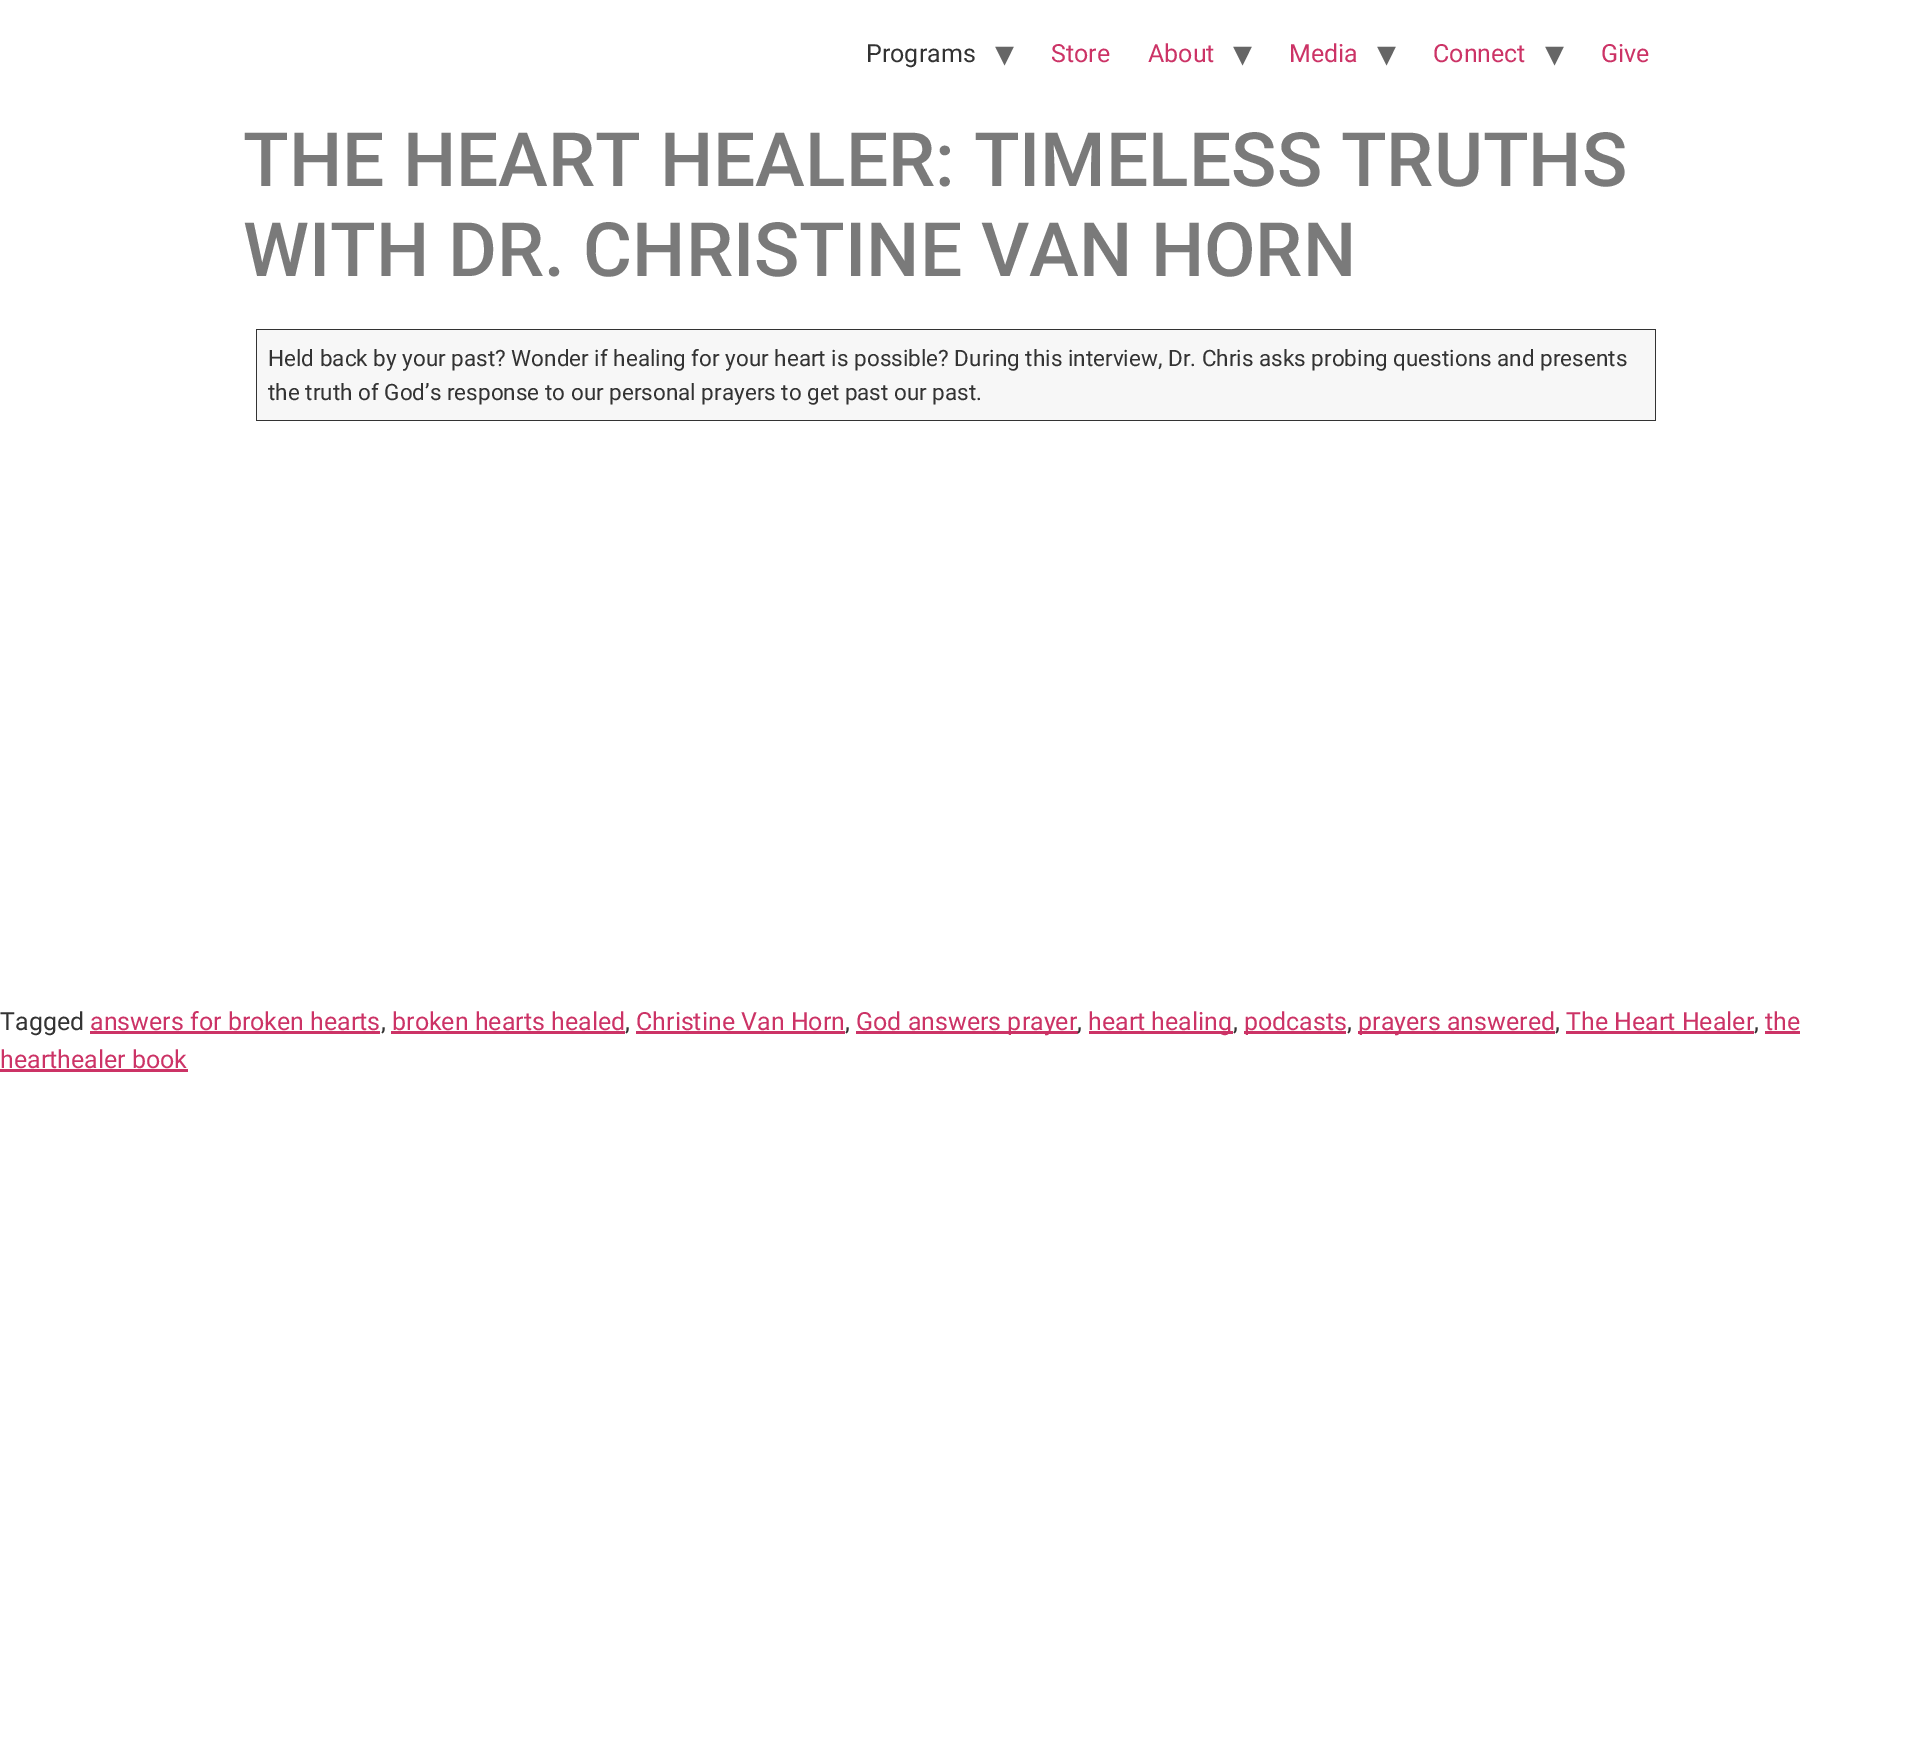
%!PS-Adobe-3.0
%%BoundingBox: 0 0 1911 1748
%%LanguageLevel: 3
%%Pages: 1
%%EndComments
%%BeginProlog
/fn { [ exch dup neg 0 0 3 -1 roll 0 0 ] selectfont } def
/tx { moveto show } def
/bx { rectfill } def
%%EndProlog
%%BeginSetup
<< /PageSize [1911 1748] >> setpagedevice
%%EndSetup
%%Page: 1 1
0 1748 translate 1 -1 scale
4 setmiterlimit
1 setgray
0 0 1911 1748 bx
/Roboto-Regular 25 fn
0.2 setgray
(Programs) 866 62 tx
/DejaVuSans-Regular 38 fn
0.4 setgray
(▾) 995 66 tx
/Roboto-Regular 25 fn
0.8 0.2 0.4 setrgbcolor
(Store) 1051 62 tx
(About) 1148 62 tx
/DejaVuSans-Regular 38 fn
0.4 setgray
(▾) 1233 66 tx
/Roboto-Regular 25 fn
0.8 0.2 0.4 setrgbcolor
(Media) 1289 62 tx
/DejaVuSans-Regular 38 fn
0.4 setgray
(▾) 1377 66 tx
/Roboto-Regular 25 fn
0.8 0.2 0.4 setrgbcolor
(Connect) 1433 62 tx
/DejaVuSans-Regular 38 fn
0.4 setgray
(▾) 1545 66 tx
/Roboto-Regular 25 fn
0.8 0.2 0.4 setrgbcolor
(Give) 1601 62 tx
/Roboto-Medium 75 fn
0.478 setgray
(THE HEART HEALER: TIMELESS TRUTHS) 243 186 tx
(WITH DR. CHRISTINE VAN HORN) 243 276 tx
0.969 setgray
257 330 1398 90 bx
0.2 setgray
256 329 1400 1 bx
1655 329 1 92 bx
256 420 1400 1 bx
256 329 1 92 bx
/Roboto-Regular 22.5 fn
(Held back by your past? Wonder if healing for your heart is possible? During this interview, Dr. Chris asks probing questions and presents) 268 366 tx
(the truth of God’s response to our personal prayers to get past our past.) 268 400 tx
/Roboto-Regular 25 fn
(Tagged) 0 1030 tx
0.8 0.2 0.4 setrgbcolor
(answers for broken hearts) 90 1030 tx
0.2 setgray
(,) 381 1030 tx
0.8 0.2 0.4 setrgbcolor
90 1031 290 3 bx
(broken hearts healed) 392 1030 tx
0.2 setgray
(,) 625 1030 tx
0.8 0.2 0.4 setrgbcolor
391 1031 234 3 bx
(Christine Van Horn) 636 1030 tx
0.2 setgray
(,) 845 1030 tx
0.8 0.2 0.4 setrgbcolor
636 1031 209 3 bx
856 1031 222 3 bx
(God answers prayer) 856 1030 tx
0.2 setgray
(,) 1077 1030 tx
0.8 0.2 0.4 setrgbcolor
1089 1031 144 3 bx
(heart healing) 1088 1030 tx
0.2 setgray
(,) 1233 1030 tx
0.8 0.2 0.4 setrgbcolor
1244 1031 102 3 bx
(podcasts) 1244 1030 tx
0.2 setgray
(,) 1347 1030 tx
0.8 0.2 0.4 setrgbcolor
1358 1031 197 3 bx
(prayers answered) 1358 1030 tx
0.2 setgray
(,) 1555 1030 tx
0.8 0.2 0.4 setrgbcolor
(The Heart Healer) 1566 1030 tx
0.2 setgray
(,) 1754 1030 tx
0.8 0.2 0.4 setrgbcolor
1566 1031 188 3 bx
1765 1031 35 3 bx
(the) 1765 1030 tx
(hearthealer book) 0 1068 tx
0 1069 188 3 bx
showpage
%%EOF
